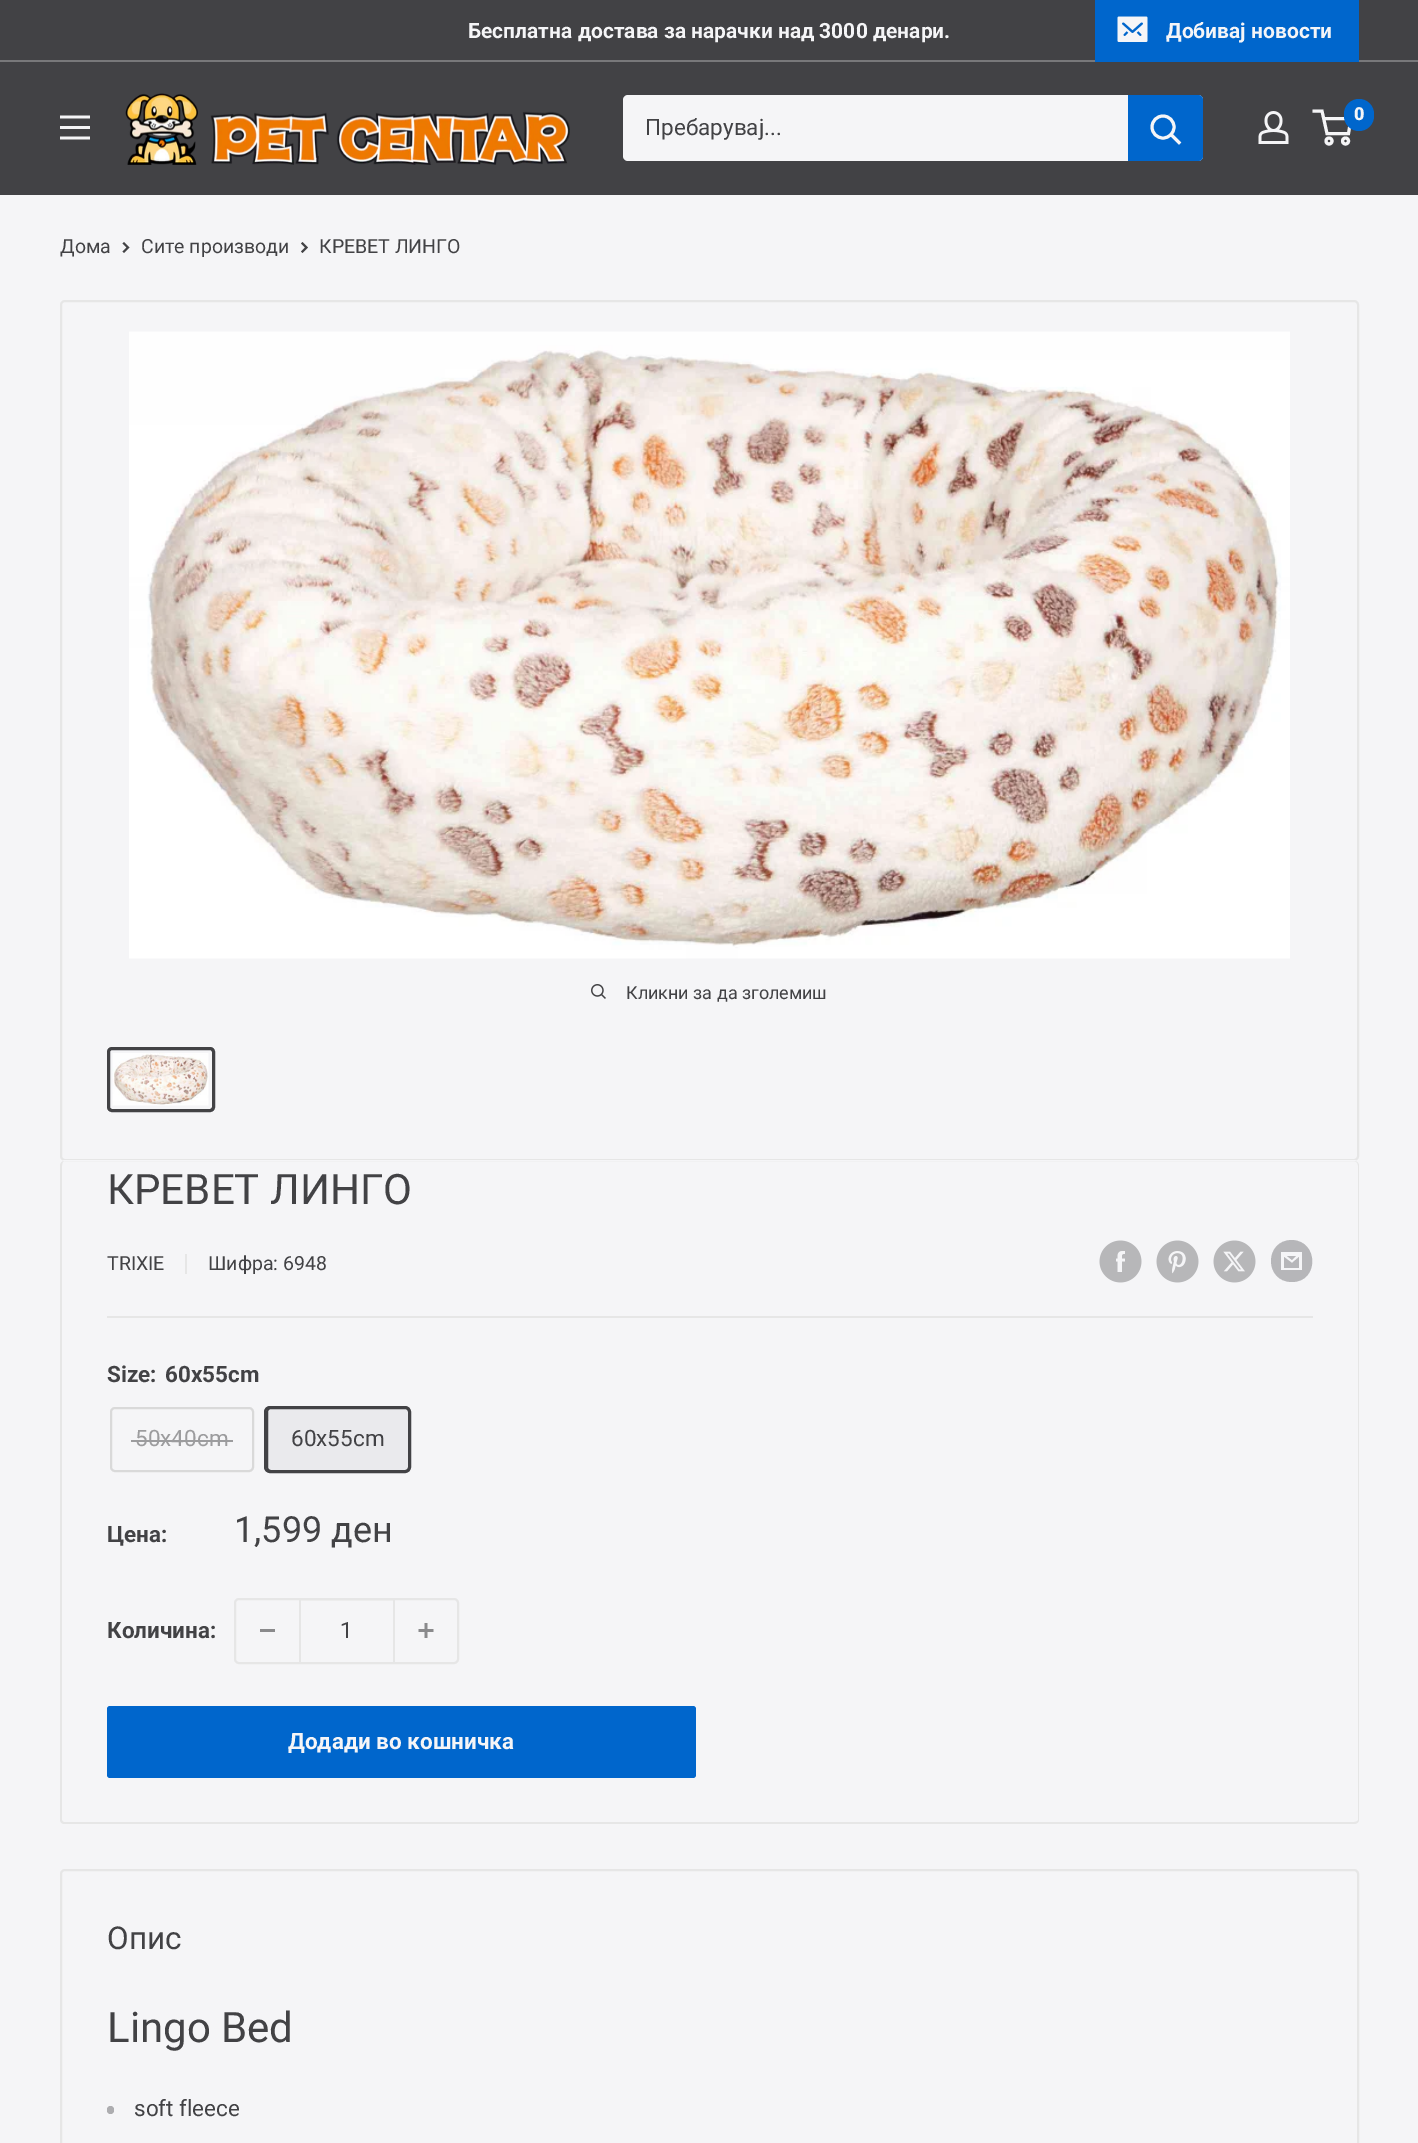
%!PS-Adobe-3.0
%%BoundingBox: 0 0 1418 2143
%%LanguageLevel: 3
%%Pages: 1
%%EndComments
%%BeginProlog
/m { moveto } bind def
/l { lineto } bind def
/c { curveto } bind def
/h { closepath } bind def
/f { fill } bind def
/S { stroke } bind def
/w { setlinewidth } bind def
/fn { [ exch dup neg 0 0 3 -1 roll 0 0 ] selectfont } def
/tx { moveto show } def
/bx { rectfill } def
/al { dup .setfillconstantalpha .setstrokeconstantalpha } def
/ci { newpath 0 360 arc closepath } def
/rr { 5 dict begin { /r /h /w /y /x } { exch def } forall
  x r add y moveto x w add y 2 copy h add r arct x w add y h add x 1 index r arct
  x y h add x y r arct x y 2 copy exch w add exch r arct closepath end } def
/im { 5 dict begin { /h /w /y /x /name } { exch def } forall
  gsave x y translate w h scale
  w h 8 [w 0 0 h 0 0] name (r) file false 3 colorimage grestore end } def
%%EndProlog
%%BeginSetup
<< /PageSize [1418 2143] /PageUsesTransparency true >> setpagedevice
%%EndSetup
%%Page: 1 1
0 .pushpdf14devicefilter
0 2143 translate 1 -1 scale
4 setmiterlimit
0.961 0.961 0.969 setrgbcolor
0 0 1418 2143 bx
0.259 0.259 0.271 setrgbcolor
0 0 1418 60 bx
0.471 0.471 0.478 setrgbcolor
0 60 1418 2 bx
/Roboto-Bold 21 fn
0.961 0.961 0.969 setrgbcolor
(Бесплатна достава за нарачки над 3000 денари.) 468 38 tx
0 0.4 0.8 setrgbcolor
1095 0 264 62 bx
(image0.raw) 1117 16 31 26 im
0.961 0.961 0.969 setrgbcolor
(Добивај новости) 1166 38 tx
0.259 0.259 0.271 setrgbcolor
0 62 1418 133 bx
(image1.raw) 125 93 445 72 im
(image2.raw) 1258 111 31 33 im
0.961 0.961 0.969 setrgbcolor
3 w
1329 141 3 ci S
1345.5 141 3 ci S
1323.5 118.5 m 1351 118.5 l 1348.5 133.5 l 1327 133.5 l 1322 111 l 1312.5 111 l S
0 0.4 0.8 setrgbcolor
1344 99 30 32 15 rr f
/Roboto-Black 18 fn
0.961 0.961 0.969 setrgbcolor
(0) 1354 120 tx
(image3.raw) 60 115 30 25 im
623 95 580 66 5 rr f
/Roboto-Regular 22.5 fn
0.259 0.259 0.271 setrgbcolor
(Пребарувај...) 645 135 tx
0 0.4 0.8 setrgbcolor
1128 95 m 1198 95 l 1201 95 1203 97 1203 100 c 1203 156 l 1203 159 1201 161 1198 161 c 1128 161 l h f
0.961 0.961 0.969 setrgbcolor
2 setlinecap
1179 142.5 m 1171.5 135 l S
0 setlinecap
1163 127 11 ci S
/Roboto-Regular 19.5 fn
0.259 0.259 0.271 setrgbcolor
(Дома) 60 253 tx
2 w
2 setlinecap
124 243.5 m 128 247.5 l 124 251.5 l S
(Сите производи) 141 253 tx
302.5 243.5 m 306.5 247.5 l 302.5 251.5 l S
(КРЕВЕТ ЛИНГО) 319 253 tx
0.902 setgray
0 setlinecap
61 301 1297 859 4 rr S
(image4.raw) 129 331 1161 628 im
(image5.raw) 591 984 15 15 im
/Roboto-Regular 18 fn
0.259 0.259 0.271 setrgbcolor
(Кликни за да зголемиш) 626 999 tx
3 w
108.5 1048.5 105 62 3.5 rr S
(image6.raw) 112 1053 97 53 im
0.961 0.961 0.969 setrgbcolor
65 1160 m 62 1160 60 1163 60 1166 c 60 1163 62 1161 64 1161 c 1354 1161 l 1357 1161 1359 1163 1359 1166 c 1359 1163 1357 1160 1354 1160 c h f
0.902 setgray
64 1161 m 1354 1161 l 1357 1161 1359 1163 1359 1166 c 1359 1820 l 1359 1822 1357 1824 1354 1824 c 64 1824 l 62 1824 60 1822 60 1820 c 60 1166 l 60 1163 62 1161 64 1161 c h 64 1161 m 1354 1161 l 1356 1161 1358 1163 1358 1166 c 1358 1820 l 1358 1821 1356 1822 1354 1822 c 64 1822 l 63 1822 62 1821 62 1820 c 62 1166 l 62 1163 63 1161 64 1161 c h eofill
/Roboto-Regular 42 fn
0.259 0.259 0.271 setrgbcolor
(КРЕВЕТ ЛИНГО) 107 1204 tx
/Roboto-Regular 19.5 fn
(TRIXIE) 107 1270 tx
0.902 setgray
185 1254 2 20 bx
0.259 0.259 0.271 setrgbcolor
(Шифра: 6948) 208 1270 tx
(image7.raw) 1099 1240 43 43 im
(image8.raw) 1156 1240 43 43 im
(image9.raw) 1213 1240 43 43 im
0.714 0.714 0.725 setrgbcolor
1292 1282 m 1264 1282 1264 1240 1292 1240 c 1319 1241 1319 1282 1292 1282 c h 1287 1256 m 1296 1256 l 1292 1260 l h 1299 1257 m 1299 1268 l 1284 1268 l 1284 1257 l 1292 1263 l h 1302 1252 m 1281 1252 l 1281 1270 l 1302 1270 l h f
0.902 setgray
107 1316 1206 2 bx
/Roboto-Bold 22.5 fn
0.259 0.259 0.271 setrgbcolor
(Size:) 107 1382 tx
(60x55cm) 165 1382 tx
0.851 setgray
2 w
111 1408 142 63 4 rr S
/Roboto-Regular 22.5 fn
0.612 0.612 0.62 setrgbcolor
(50x40cm) 135 1446 tx
131 1440 102 2 bx
0.259 0.259 0.271 setrgbcolor
265 1407 145 65 5 rr S
0.06 al
266 1407 144 65 bx
1 al
267 1408 142 63 4 rr S
(60x55cm) 291 1446 tx
/Roboto-Bold 22.5 fn
(Цена:) 107 1542 tx
/Roboto-Regular 36 fn
(1,599 ден) 234 1542 tx
/Roboto-Bold 22.5 fn
(Количина:) 107 1638 tx
0.902 setgray
235 1599 223 64 4 rr S
0.541 0.541 0.549 setrgbcolor
260 1629 15 3 bx
0.4 al
0.902 setgray
300 1600 93 1 bx
1 al
393 1599 2 63 bx
299 1599 2 63 bx
/Roboto-Regular 22.5 fn
0.259 0.259 0.271 setrgbcolor
(1) 340 1638 tx
(image10.raw) 418 1623 16 15 im
0 0.4 0.8 setrgbcolor
107 1706 589 72 3 rr f
/Roboto-Bold 22.5 fn
0.961 0.961 0.969 setrgbcolor
(Додади во кошничка) 288 1749 tx
0.902 setgray
61 1870 1297 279 4 rr S
/Roboto-Regular 31.5 fn
0.259 0.259 0.271 setrgbcolor
(Опис) 107 1949 tx
/Roboto-Regular 42 fn
(Lingo Bed) 107 2042 tx
0.678 0.678 0.69 setrgbcolor
107 2106 7 8 3.5 rr f
/Roboto-Regular 22.5 fn
0.259 0.259 0.271 setrgbcolor
(soft fleece) 134 2116 tx
.poppdf14devicefilter showpage
%%EOF
